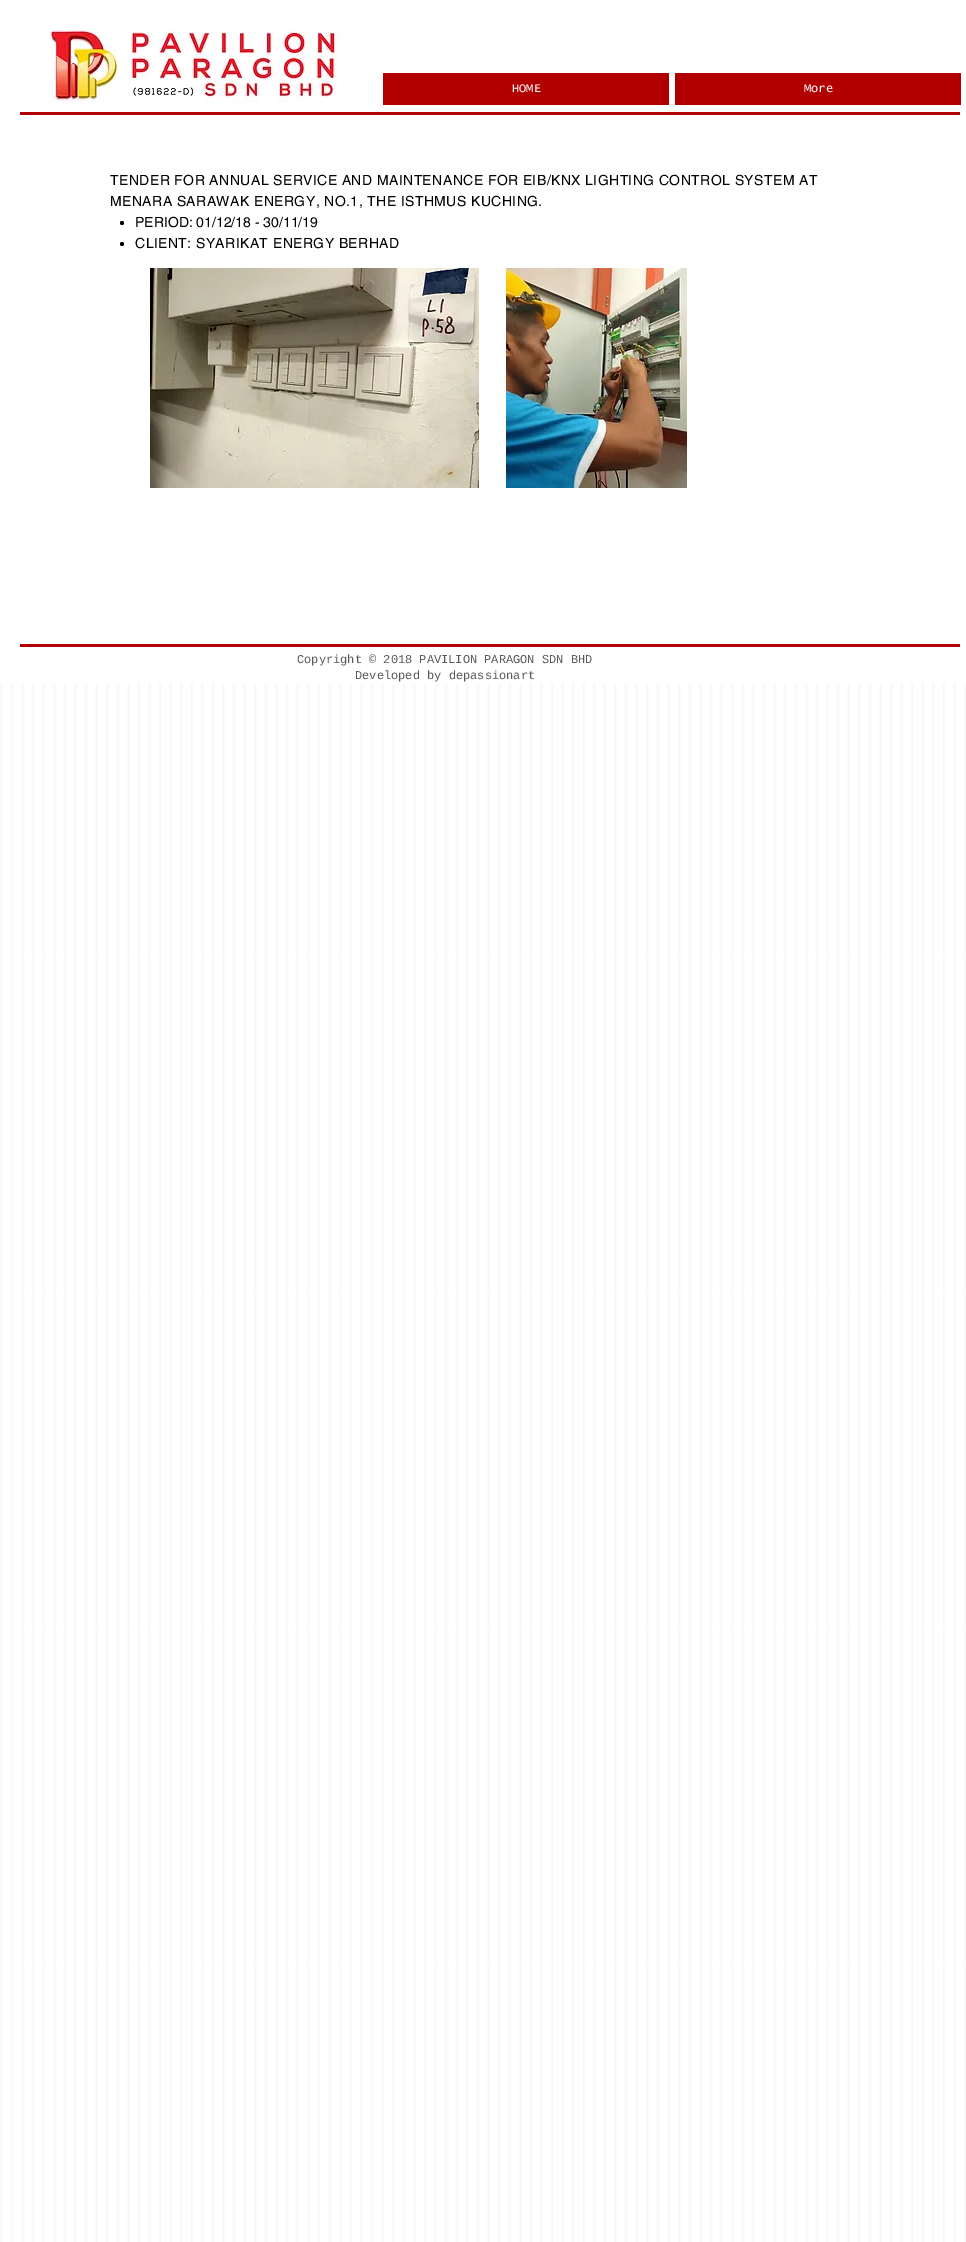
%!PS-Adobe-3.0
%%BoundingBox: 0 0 966 2242
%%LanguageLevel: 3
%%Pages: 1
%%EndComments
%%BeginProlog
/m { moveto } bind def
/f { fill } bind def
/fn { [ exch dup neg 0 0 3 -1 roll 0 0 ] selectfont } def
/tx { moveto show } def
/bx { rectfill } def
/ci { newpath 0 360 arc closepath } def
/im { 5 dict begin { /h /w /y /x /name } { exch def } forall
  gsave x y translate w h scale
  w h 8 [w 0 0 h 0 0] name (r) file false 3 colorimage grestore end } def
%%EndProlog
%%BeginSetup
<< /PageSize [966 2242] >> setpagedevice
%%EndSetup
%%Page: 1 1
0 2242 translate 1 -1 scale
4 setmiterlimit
1 setgray
0 0 966 2242 bx
(image0.raw) 48 30 292 73 im
0.698 0 0 setrgbcolor
383 73 286 32 bx
/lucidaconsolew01-Regular 12 fn
1 setgray
(HOME) 512 92 tx
0.698 0 0 setrgbcolor
675 73 286 32 bx
1 setgray
(More) 804 92 tx
0.698 0 0 setrgbcolor
20 112 940 3 bx
/helvetica-Regular 14 fn
0 setgray
110 185 m 0.42 0 (TENDER FOR ANNUAL SERVICE AND MAINTENANCE FOR EIB/KNX LIGHTING CONTROL SYSTEM AT) ashow
110 206 m 0.42 0 (MENARA SARAWAK ENERGY, NO.1, THE ISTHMUS KUCHING.) ashow
122 223 2 ci f
(PERIOD: 01/12/18 - 30/11/19) 135 227 tx
122 244 2 ci f
135 248 m 0.42 0 (CLIENT: SYARIKAT ENERGY BERHAD) ashow
(image1.raw) 150 268 329 220 im
(image2.raw) 506 268 181 220 im
0.698 0 0 setrgbcolor
20 644 940 3 bx
/LiberationMono-Regular 12 fn
0.345 setgray
(Copyright © 2018 PAVILION PARAGON SDN BHD) 297 663 tx
(Developed by depassionart) 355 679 tx
(image3.raw) 0 684 966 1558 im
showpage
%%EOF
